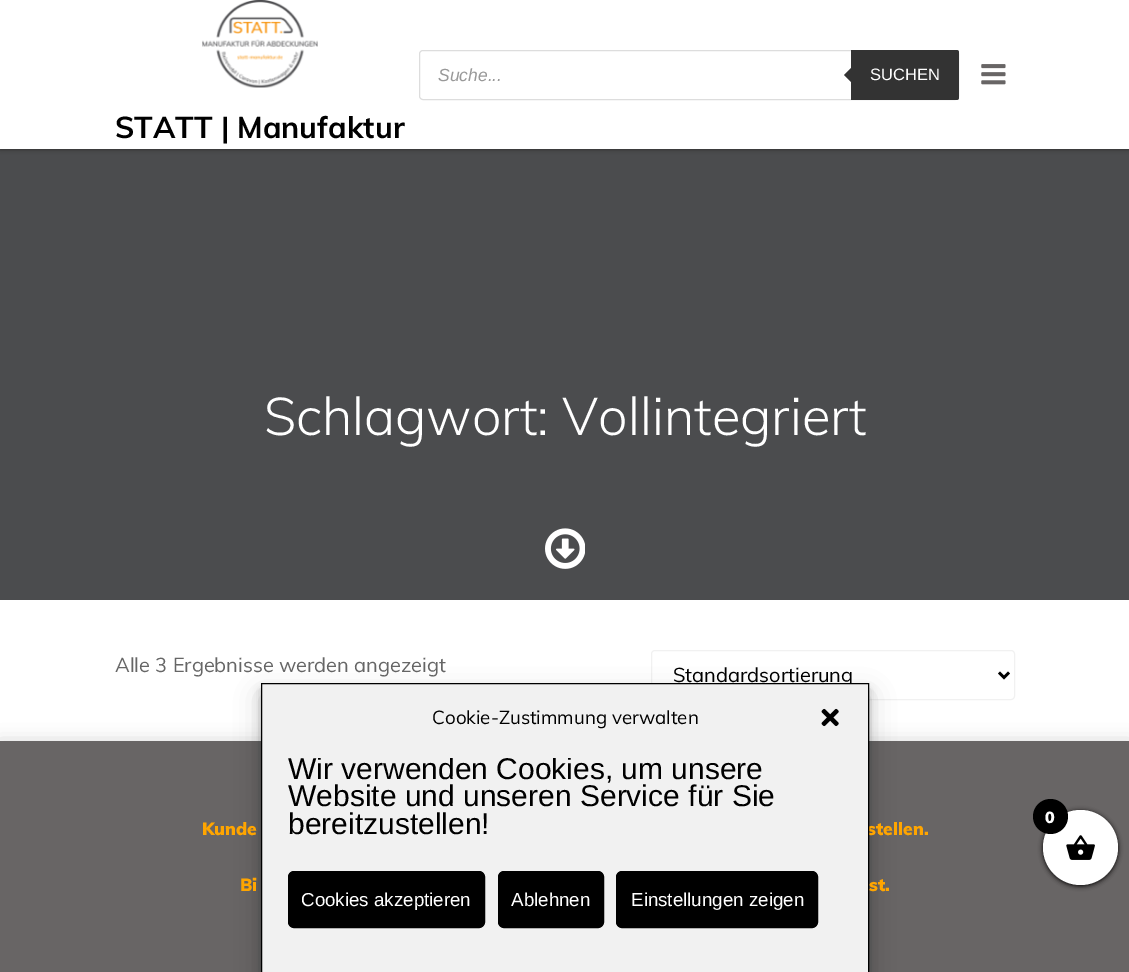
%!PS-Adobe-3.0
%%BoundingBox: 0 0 1129 972
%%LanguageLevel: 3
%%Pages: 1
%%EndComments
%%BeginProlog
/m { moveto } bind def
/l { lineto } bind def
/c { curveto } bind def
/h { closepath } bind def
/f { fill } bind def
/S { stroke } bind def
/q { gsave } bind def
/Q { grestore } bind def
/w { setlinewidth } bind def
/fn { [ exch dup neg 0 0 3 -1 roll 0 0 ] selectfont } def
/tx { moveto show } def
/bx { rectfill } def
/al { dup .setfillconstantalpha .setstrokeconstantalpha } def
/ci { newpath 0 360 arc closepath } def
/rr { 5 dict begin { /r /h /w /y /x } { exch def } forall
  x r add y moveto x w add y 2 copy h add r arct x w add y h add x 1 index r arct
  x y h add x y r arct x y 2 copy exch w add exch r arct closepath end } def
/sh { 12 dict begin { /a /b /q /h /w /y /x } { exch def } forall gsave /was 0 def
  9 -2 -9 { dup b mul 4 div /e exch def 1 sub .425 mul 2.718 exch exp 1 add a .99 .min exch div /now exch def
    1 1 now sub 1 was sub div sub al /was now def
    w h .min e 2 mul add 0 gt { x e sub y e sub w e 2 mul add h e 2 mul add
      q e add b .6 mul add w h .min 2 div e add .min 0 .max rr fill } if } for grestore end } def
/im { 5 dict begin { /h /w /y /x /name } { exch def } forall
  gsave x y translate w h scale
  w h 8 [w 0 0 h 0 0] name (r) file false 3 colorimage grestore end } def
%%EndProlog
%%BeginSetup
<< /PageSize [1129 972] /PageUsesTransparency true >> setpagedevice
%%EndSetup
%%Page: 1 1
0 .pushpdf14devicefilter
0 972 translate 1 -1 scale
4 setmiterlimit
1 setgray
0 0 1129 972 bx
0.294 0.298 0.306 setrgbcolor
0 149 1129 451 bx
0 setgray
0 0 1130 149 0 2.5 0.5 sh
1 setgray
0 0 1129 149 bx
0.867 setgray
419.5 50.5 539 49 3.5 rr S
/LiberationSans-Italic 17.5 fn
0.6 setgray
(Suche...) 438 81 tx
0.2 setgray
851 50 m 956.5 50 l 958 50 959 51 959 52.5 c 959 97.5 l 959 99 958 100 956.5 100 c 851 100 l h f
854 65 m 854 85 l 844 75 l h f
/LiberationSans-Regular 16.5 fn
1 setgray
(SUCHEN) 870 80 tx
(image0.raw) 981 64 25 21 im
(image1.raw) 202 0 116 88 im
/Muli-Bold 30 fn
0 setgray
(STATT | Manufaktur) 115 138 tx
/Muli-Light 52.5 fn
1 setgray
(Schlagwort: Vollintegriert) 264 435 tx
(image2.raw) 545 528 40 41 im
/Muli-Regular 20 fn
0.4 setgray
(Alle 3 Ergebnisse werden angezeigt) 115 672 tx
0.945 setgray
651.5 650.5 363 49 3.5 rr S
0 setgray
2.5 w
999 672.5 m 1004 677.5 l 1009 672.5 l S
(Standardsortierung) 673 682 tx
0 743 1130 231 0 9 0.2 sh
0.408 0.396 0.396 setrgbcolor
0 741 1129 231 bx
0 setgray
261 690 608 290 0 4 0.23 sh
261 695 608 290 0 12.5 0.19 sh
/Muli-Black 17.5 fn
1 0.647 0 setrgbcolor
(stellen.) 867 835 tx
0.945 setgray
261.5 683.5 m 868.5 683.5 l 868.5 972.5 l 261.5 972.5 l h q f Q
0 setgray
1 w
S
/Muli-Regular 18.75 fn
(Cookie-Zustimmung verwalten) 432 724 tx
(image3.raw) 821 708 18 19 im
q
288 758 555 88 rectclip
/LiberationSans-Regular 30 fn
(Wir verwenden Cookies, um unsere) 288 779 tx
Q
/LiberationSans-Regular 30 fn
(Website und unseren Service für Sie) 288 806 tx
(bereitzustellen!) 288 834 tx
288.5 871.5 196 56 5.5 rr q f Q
S
/LiberationSans-Regular 18.75 fn
1 setgray
(Cookies akzeptieren) 301 906 tx
0 setgray
498.5 871.5 105 56 5.5 rr q f Q
S
1 setgray
(Ablehnen) 511 906 tx
0 setgray
616.5 871.5 201 56 5.5 rr q f Q
S
1 setgray
(Einstellungen zeigen) 631 906 tx
0 setgray
1043 811 75 75 37.5 2.5 1 sh
1 setgray
1080.5 847.5 37.5 ci f
0 setgray
1050.5 816.5 17.5 ci f
/Muli-Black 16 fn
1 setgray
(0) 1045 823 tx
(image4.raw) 1066 835 29 25 im
/Muli-Black 17.5 fn
1 0.647 0 setrgbcolor
(Kunde) 202 835 tx
(Bi) 240 891 tx
(st.) 869 891 tx
.poppdf14devicefilter showpage
%%EOF
